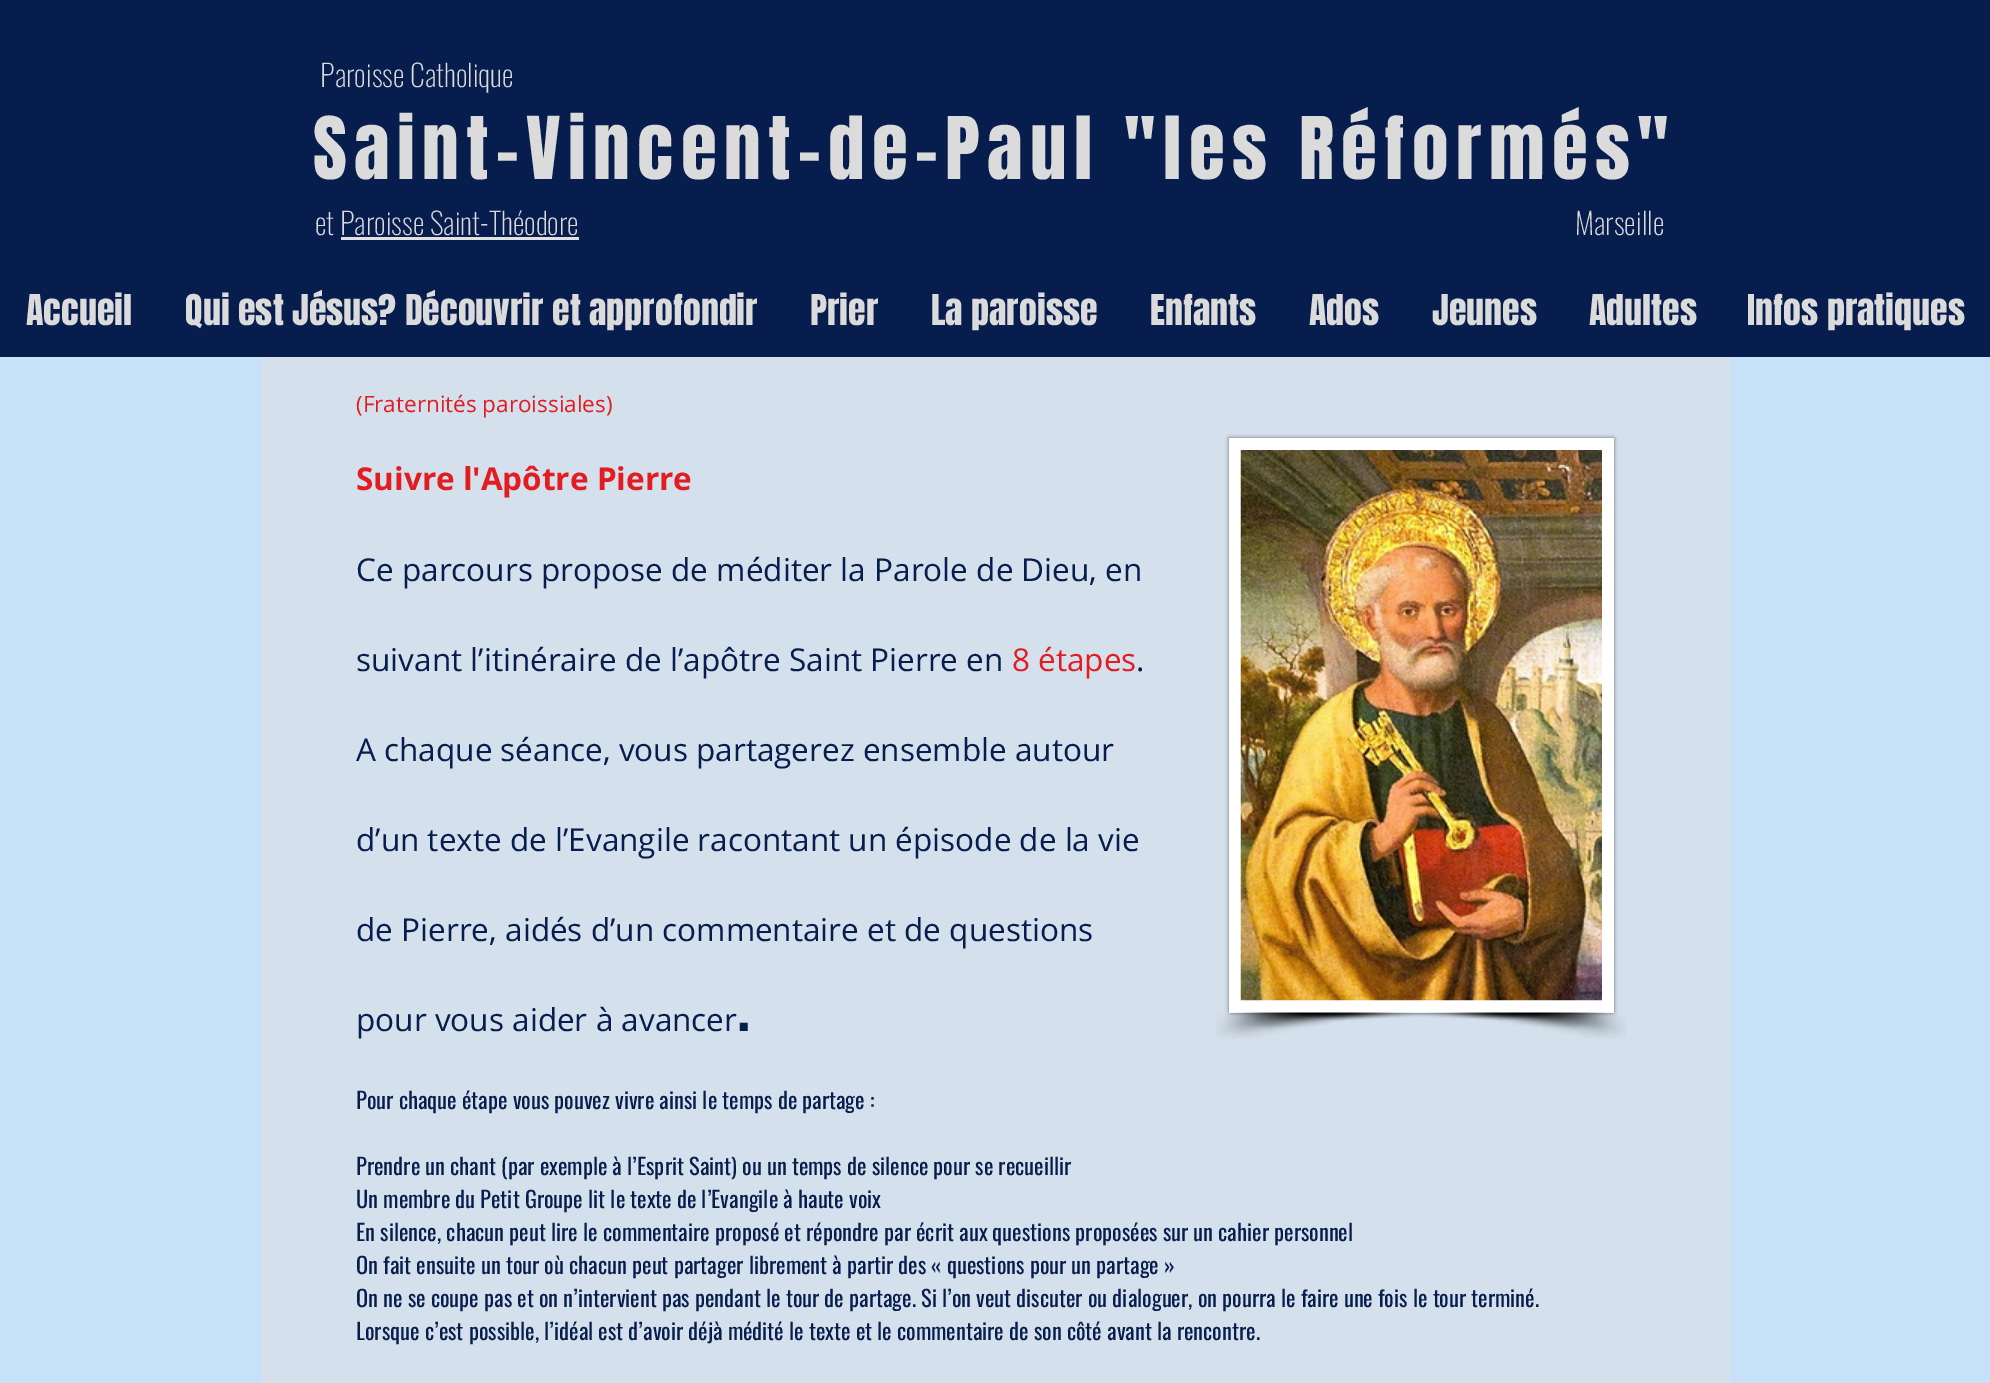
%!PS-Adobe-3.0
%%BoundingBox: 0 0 1990 1383
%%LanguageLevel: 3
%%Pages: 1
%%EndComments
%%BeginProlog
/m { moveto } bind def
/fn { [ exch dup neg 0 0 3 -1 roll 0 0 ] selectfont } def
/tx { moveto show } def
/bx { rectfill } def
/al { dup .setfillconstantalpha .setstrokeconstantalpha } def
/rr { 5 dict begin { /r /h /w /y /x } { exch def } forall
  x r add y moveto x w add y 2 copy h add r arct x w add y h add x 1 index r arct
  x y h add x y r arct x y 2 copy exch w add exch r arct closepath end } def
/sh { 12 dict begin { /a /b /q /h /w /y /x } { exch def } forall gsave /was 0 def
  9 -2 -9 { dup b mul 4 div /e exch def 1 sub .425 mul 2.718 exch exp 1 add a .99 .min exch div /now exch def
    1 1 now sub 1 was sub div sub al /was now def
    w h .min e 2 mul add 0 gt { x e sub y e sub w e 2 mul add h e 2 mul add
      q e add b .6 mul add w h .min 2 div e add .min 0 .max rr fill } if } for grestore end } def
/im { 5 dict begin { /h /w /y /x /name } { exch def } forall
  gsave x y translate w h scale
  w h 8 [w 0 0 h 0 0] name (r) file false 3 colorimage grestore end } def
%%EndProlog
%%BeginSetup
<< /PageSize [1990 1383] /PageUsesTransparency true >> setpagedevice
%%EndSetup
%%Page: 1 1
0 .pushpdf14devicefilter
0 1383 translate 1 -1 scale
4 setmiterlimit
0.78 0.886 0.973 setrgbcolor
0 0 1990 1383 bx
0.027 0.114 0.302 setrgbcolor
0 0 1990 357 bx
/Oswald-ExtraLight 30 fn
0.859 setgray
(Paroisse Catholique) 320 87 tx
/Anton-Regular 73.5 fn
313 179 m 7.35 0 (Saint-Vincent-de-Paul "les Réformés") ashow
/Oswald-ExtraLight 30 fn
(et Paroisse Saint-Théodore) 315 235 tx
0.878 setgray
341 237 238 3 bx
0.859 setgray
(Marseille) 1575 235 tx
/Anton-Regular 36 fn
(Accueil) 26 325 tx
(Qui est Jésus? Découvrir et approfondir) 185 325 tx
(Prier) 810 325 tx
(La paroisse) 931 325 tx
(Enfants) 1150 325 tx
(Ados) 1309 325 tx
(Jeunes) 1432 325 tx
(Adultes) 1589 325 tx
(Infos pratiques) 1747 325 tx
0.831 0.878 0.925 setrgbcolor
261 357 1470 1026 bx
/OpenSans-Regular 22.5 fn
0.886 0.11 0.129 setrgbcolor
(\(Fraternités paroissiales\)) 356 412 tx
/OpenSans-Bold 31.5 fn
(Suivre l'Apôtre Pierre) 356 490 tx
/OpenSans-Regular 31.5 fn
0.027 0.114 0.302 setrgbcolor
(Ce parcours propose de méditer la Parole de Dieu, en) 356 581 tx
(suivant l’itinéraire de l’apôtre Saint Pierre en) 356 671 tx
0.886 0.11 0.129 setrgbcolor
(8 étapes) 1012 671 tx
0.027 0.114 0.302 setrgbcolor
(.) 1136 671 tx
(A chaque séance, vous partagerez ensemble autour) 356 761 tx
(d’un texte de l’Evangile racontant un épisode de la vie) 356 851 tx
(de Pierre, aidés d’un commentaire et de questions) 356 941 tx
(pour vous aider à avancer) 356 1031 tx
/Oswald-Medium 60 fn
(.) 737 1031 tx
/Oswald-Regular 22.5 fn
(Pour chaque étape vous pouvez vivre ainsi le temps de partage :) 356 1109 tx
(Prendre un chant \(par exemple à l’Esprit Saint\) ou un temps de silence pour se recueillir) 356 1175 tx
(Un membre du Petit Groupe lit le texte de l’Evangile à haute voix) 356 1208 tx
(En silence, chacun peut lire le commentaire proposé et répondre par écrit aux questions proposées sur un cahier personnel) 356 1241 tx
(On fait ensuite un tour où chacun peut partager librement à partir des « questions pour un partage ») 356 1274 tx
(On ne se coupe pas et on n’intervient pas pendant le tour de partage. Si l’on veut discuter ou dialoguer, on pourra le faire une fois le tour terminé.) 356 1307 tx
(Lorsque c’est possible, l’idéal est d’avoir déjà médité le texte et le commentaire de son côté avant la rencontre.) 356 1340 tx
0 setgray
1229 438 385 575 0 2 0.5 sh
1 setgray
1229 438 385 575 bx
(image0.raw) 1240 450 362 551 im
(image1.raw) 1216 1012 223 27 im
(image2.raw) 1407 1012 220 27 im
.poppdf14devicefilter showpage
%%EOF
